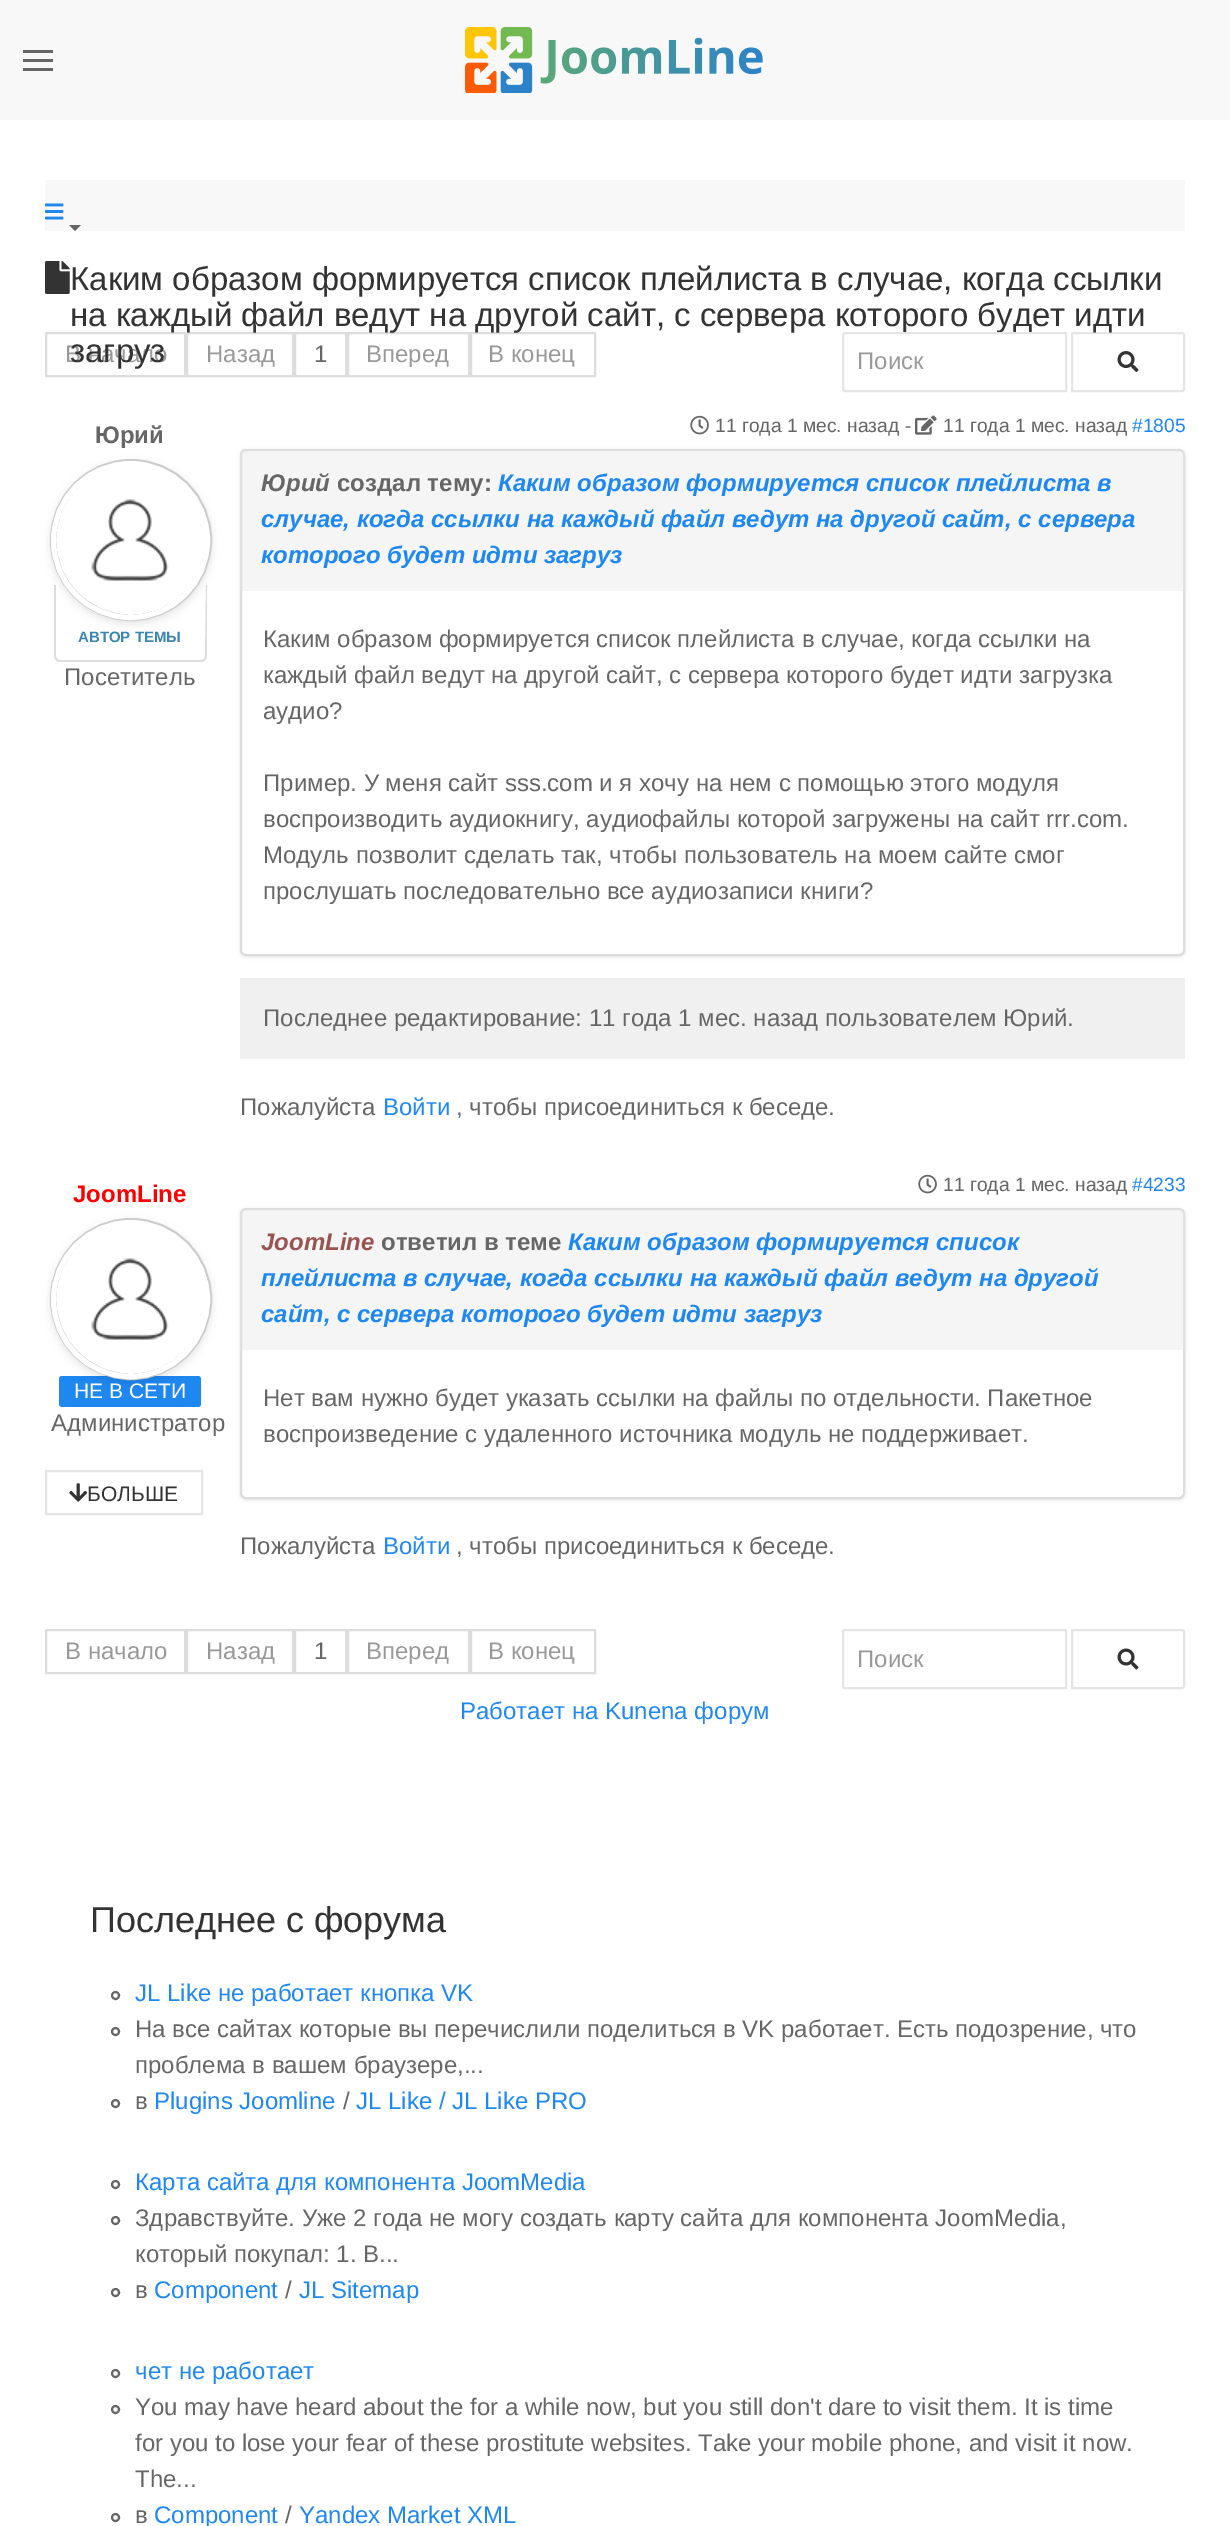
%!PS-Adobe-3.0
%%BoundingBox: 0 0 1230 2526
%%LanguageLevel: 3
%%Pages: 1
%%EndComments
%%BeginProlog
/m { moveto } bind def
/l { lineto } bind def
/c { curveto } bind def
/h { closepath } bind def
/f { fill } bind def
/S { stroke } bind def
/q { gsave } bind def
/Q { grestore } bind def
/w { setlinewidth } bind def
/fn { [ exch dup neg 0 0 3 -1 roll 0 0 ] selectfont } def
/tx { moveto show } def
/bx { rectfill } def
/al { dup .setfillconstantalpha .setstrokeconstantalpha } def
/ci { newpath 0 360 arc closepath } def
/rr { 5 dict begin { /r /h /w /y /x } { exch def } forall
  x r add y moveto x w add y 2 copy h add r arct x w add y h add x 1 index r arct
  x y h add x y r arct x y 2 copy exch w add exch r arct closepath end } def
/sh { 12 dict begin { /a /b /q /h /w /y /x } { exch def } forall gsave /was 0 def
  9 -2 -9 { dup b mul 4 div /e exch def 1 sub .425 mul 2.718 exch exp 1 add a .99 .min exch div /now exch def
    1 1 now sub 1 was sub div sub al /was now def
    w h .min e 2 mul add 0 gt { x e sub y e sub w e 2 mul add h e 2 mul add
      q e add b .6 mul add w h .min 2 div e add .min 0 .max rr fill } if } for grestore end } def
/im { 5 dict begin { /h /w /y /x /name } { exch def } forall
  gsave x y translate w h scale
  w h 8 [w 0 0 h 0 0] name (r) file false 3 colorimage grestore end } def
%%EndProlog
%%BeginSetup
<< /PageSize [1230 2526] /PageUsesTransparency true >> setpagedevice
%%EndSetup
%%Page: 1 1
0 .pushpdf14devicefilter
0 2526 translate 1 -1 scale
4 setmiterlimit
1 setgray
0 0 1230 2526 bx
0.973 setgray
0 0 1230 120 bx
0.4 setgray
23 50 30 3 bx
23 59 30 3 bx
23 68 30 3 bx
(image0.raw) 465 27 298 66 im
0.973 setgray
45 180 1140 51 bx
(image1.raw) 45 203 19 17 im
0.4 setgray
69 225 m 81 225 l 75 231 l h f
(image2.raw) 45 261 25 33 im
/LiberationSans-Regular 33 fn
0.2 setgray
(Каким образом формируется список плейлиста в случае, когда ссылки) 70 290 tx
0.867 setgray
2 w
46 333 139 43 rectstroke
187 333 106 43 rectstroke
295 333 51 43 rectstroke
348 333 121 43 rectstroke
471 333 124 43 rectstroke
0.898 setgray
1072 333 m 1182 333 l 1183 333 1184 334 1184 335 c 1184 389 l 1184 390 1183 391 1182 391 c 1072 391 l h S
0.2 setgray
(на каждый файл ведут на другой сайт, с сервера которого будет идти) 70 326 tx
/LiberationSans-Regular 24 fn
0.6 setgray
(В начало) 65 362 tx
/LiberationSans-Regular 33 fn
0.2 setgray
(загруз) 70 362 tx
/LiberationSans-Regular 24 fn
0.6 setgray
(Назад) 206 362 tx
0.4 setgray
(1) 314 362 tx
0.6 setgray
(Вперед) 366 362 tx
(В конец) 488 362 tx
1 setgray
845 333 m 1066 333 l 1066 391 l 845 391 l 844 391 843 390 843 389 c 843 335 l 843 334 844 333 845 333 c h q f Q
0.898 setgray
S
0.6 setgray
(Поиск) 857 369 tx
(image3.raw) 1117 351 22 21 im
/LiberationSans-Bold 24 fn
0.4 setgray
(Юрий) 95 443 tx
0.867 setgray
54 585 m 207 585 l 207 656 l 207 659 204 662 201 662 c 60 662 l 57 662 54 659 54 656 c h 56 585 m 206 585 l 205 656 l 204 659 l 201 660 l 60 660 l 58 660 56 658 56 656 c h eofill
q
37 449 m 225 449 l 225 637 l 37 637 l h 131 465 m 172.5 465 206 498.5 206 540 c 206 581.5 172.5 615 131 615 c 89.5 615 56 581.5 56 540 c 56 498.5 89.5 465 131 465 c h eoclip newpath
0 setgray
50 462 162 162 81 4 0.1 sh
Q
0.8 setgray
6 w
131 540 78 ci S
1 setgray
5 w
130.5 540.5 77 ci S
(image4.raw) 91 499 78 82 im
/LiberationSans-Bold 15 fn
0.227 0.529 0.678 setrgbcolor
(АВТОР ТЕМЫ) 78 642 tx
/LiberationSans-Regular 24 fn
0.4 setgray
(Посетитель) 64 685 tx
(image5.raw) 690 415 19 20 im
/LiberationSans-Regular 19.25 fn
(11 года 1 мес. назад -) 715 432 tx
(image6.raw) 915 415 22 20 im
(11 года 1 мес. назад) 943 432 tx
0.118 0.529 0.941 setrgbcolor
(#1805) 1132 432 tx
q
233 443 m 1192 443 l 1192 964 l 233 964 l h 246 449 m 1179 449 l 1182.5 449 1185 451.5 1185 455 c 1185 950 l 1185 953.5 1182.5 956 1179 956 c 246 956 l 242.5 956 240 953.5 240 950 c 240 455 l 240 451.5 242.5 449 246 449 c h eoclip newpath
0 setgray
240 450 945 507 6 2 0.1 sh
Q
0.867 setgray
2 w
241 450 943 505 5 rr S
0.4 al
0.898 setgray
246 450 m 1179 450 l 1182.5 450 1185 452.5 1185 456 c 1185 591 l 240 591 l 240 456 l 240 452.5 242.5 450 246 450 c h f
/LiberationSans-BoldItalic 24 fn
1 al
0.4 setgray
(Юрий) 261 491 tx
/LiberationSans-Bold 24 fn
(создал тему:) 337 491 tx
/LiberationSans-BoldItalic 24 fn
0.118 0.529 0.941 setrgbcolor
(Каким образом формируется список плейлиста в) 498 491 tx
(случае, когда ссылки на каждый файл ведут на другой сайт, с сервера) 261 527 tx
(которого будет идти загруз) 261 563 tx
/LiberationSans-Regular 24 fn
0.4 setgray
(Каким образом формируется список плейлиста в случае, когда ссылки на) 263 647 tx
(каждый файл ведут на другой сайт, с сервера которого будет идти загрузка) 263 683 tx
(аудио?) 263 719 tx
(Пример. У меня сайт sss.com и я хочу на нем с помощью этого модуля) 263 791 tx
(воспроизводить аудиокнигу, аудиофайлы которой загружены на сайт rrr.com.) 263 827 tx
(Модуль позволит сделать так, чтобы пользователь на моем сайте смог) 263 863 tx
(прослушать последовательно все аудиозаписи книги?) 263 899 tx
0.941 setgray
240 978 945 81 bx
0.4 setgray
(Последнее редактирование: 11 года 1 мес. назад пользователем) 263 1026 tx
(Юрий) 1003 1026 tx
(.) 1067 1026 tx
(Пожалуйста) 240 1115 tx
0.118 0.529 0.941 setrgbcolor
(Войти) 383 1115 tx
0.4 setgray
(, чтобы присоединиться к беседе.) 456 1115 tx
/LiberationSans-Bold 24 fn
1 0 0 setrgbcolor
(JoomLine) 73 1202 tx
0.118 0.529 0.941 setrgbcolor
59 1376 142 31 3 rr f
q
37 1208 m 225 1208 l 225 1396 l 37 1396 l h 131 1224 m 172.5 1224 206 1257.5 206 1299 c 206 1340.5 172.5 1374 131 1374 c 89.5 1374 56 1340.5 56 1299 c 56 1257.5 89.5 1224 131 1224 c h eoclip newpath
0 setgray
50 1221 162 162 81 4 0.1 sh
Q
0.8 setgray
6 w
131 1299 78 ci S
1 setgray
5 w
130.5 1299.5 77 ci S
(image4.raw) 91 1258 78 82 im
/LiberationSans-Regular 21 fn
(НЕ В СЕТИ) 74 1398 tx
/LiberationSans-Regular 24 fn
0.4 setgray
(Администратор) 51 1431 tx
0.898 setgray
2 w
46 1471 156 43 rectstroke
(image7.raw) 69 1483 19 19 im
/LiberationSans-Regular 21 fn
0.2 setgray
(БОЛЬШЕ) 87 1501 tx
(image5.raw) 918 1174 19 20 im
/LiberationSans-Regular 19.25 fn
0.4 setgray
(11 года 1 мес. назад) 943 1191 tx
0.118 0.529 0.941 setrgbcolor
(#4233) 1132 1191 tx
q
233 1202 m 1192 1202 l 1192 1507 l 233 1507 l h 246 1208 m 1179 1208 l 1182.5 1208 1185 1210.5 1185 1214 c 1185 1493 l 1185 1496.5 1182.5 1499 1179 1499 c 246 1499 l 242.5 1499 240 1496.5 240 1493 c 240 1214 l 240 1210.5 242.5 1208 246 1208 c h eoclip newpath
0 setgray
240 1209 945 291 6 2 0.1 sh
Q
0.867 setgray
241 1209 943 289 5 rr S
0.4 al
0.898 setgray
246 1209 m 1179 1209 l 1182.5 1209 1185 1211.5 1185 1215 c 1185 1350 l 240 1350 l 240 1215 l 240 1211.5 242.5 1209 246 1209 c h f
/LiberationSans-BoldItalic 24 fn
1 al
0.592 0.329 0.318 setrgbcolor
(JoomLine) 261 1250 tx
/LiberationSans-Bold 24 fn
0.4 setgray
(ответил в теме) 381 1250 tx
/LiberationSans-BoldItalic 24 fn
0.118 0.529 0.941 setrgbcolor
(Каким образом формируется список) 568 1250 tx
(плейлиста в случае, когда ссылки на каждый файл ведут на другой) 261 1286 tx
(сайт, с сервера которого будет идти загруз) 261 1322 tx
/LiberationSans-Regular 24 fn
0.4 setgray
(Нет вам нужно будет указать ссылки на файлы по отдельности. Пакетное) 263 1406 tx
(воспроизведение с удаленного источника модуль не поддерживает.) 263 1442 tx
(Пожалуйста) 240 1554 tx
0.118 0.529 0.941 setrgbcolor
(Войти) 383 1554 tx
0.4 setgray
(, чтобы присоединиться к беседе.) 456 1554 tx
0.867 setgray
46 1630 139 43 rectstroke
0.6 setgray
(В начало) 65 1659 tx
0.867 setgray
187 1630 106 43 rectstroke
0.6 setgray
(Назад) 206 1659 tx
0.867 setgray
295 1630 51 43 rectstroke
0.4 setgray
(1) 314 1659 tx
0.867 setgray
348 1630 121 43 rectstroke
0.6 setgray
(Вперед) 366 1659 tx
0.867 setgray
471 1630 124 43 rectstroke
0.6 setgray
(В конец) 488 1659 tx
0.898 setgray
845 1630 m 1066 1630 l 1066 1688 l 845 1688 l 844 1688 843 1687 843 1686 c 843 1632 l 843 1631 844 1630 845 1630 c h S
0.6 setgray
(Поиск) 857 1667 tx
0.898 setgray
1072 1630 m 1182 1630 l 1183 1630 1184 1631 1184 1632 c 1184 1686 l 1184 1687 1183 1688 1182 1688 c 1072 1688 l h S
(image8.raw) 1117 1648 22 22 im
0.118 0.529 0.941 setrgbcolor
(Работает на Kunena форум) 460 1719 tx
/LiberationSans-Regular 36 fn
0.2 setgray
(Последнее с форума) 90 1932 tx
0.4 setgray
115.5 1995.5 3.5 ci S
/LiberationSans-Regular 24 fn
0.118 0.529 0.941 setrgbcolor
(JL Like не работает кнопка VK) 135 2001 tx
0.4 setgray
115.5 2031.5 3.5 ci S
(На все сайтах которые вы перечислили поделиться в VK работает. Есть подозрение, что) 135 2037 tx
(проблема в вашем браузере,...) 135 2073 tx
115.5 2103.5 3.5 ci S
(в) 135 2109 tx
0.118 0.529 0.941 setrgbcolor
(Plugins Joomline) 154 2109 tx
0.4 setgray
(/) 343 2109 tx
0.118 0.529 0.941 setrgbcolor
(JL Like / JL Like PRO) 356 2109 tx
0.4 setgray
115.5 2184.5 3.5 ci S
0.118 0.529 0.941 setrgbcolor
(Карта сайта для компонента JoomMedia) 135 2190 tx
0.4 setgray
115.5 2220.5 3.5 ci S
(Здравствуйте. Уже 2 года не могу создать карту сайта для компонента JoomMedia,) 135 2226 tx
(который покупал: 1. В...) 135 2262 tx
115.5 2292.5 3.5 ci S
(в) 135 2298 tx
0.118 0.529 0.941 setrgbcolor
(Component) 154 2298 tx
0.4 setgray
(/) 285 2298 tx
0.118 0.529 0.941 setrgbcolor
(JL Sitemap) 299 2298 tx
0.4 setgray
115.5 2373.5 3.5 ci S
0.118 0.529 0.941 setrgbcolor
(чет не работает) 135 2379 tx
0.4 setgray
115.5 2409.5 3.5 ci S
(You may have heard about the for a while now, but you still don't dare to visit them. It is time) 135 2415 tx
(for you to lose your fear of these prostitute websites. Take your mobile phone, and visit it now.) 135 2451 tx
(The...) 135 2487 tx
115.5 2517.5 3.5 ci S
(в) 135 2523 tx
0.118 0.529 0.941 setrgbcolor
(Component) 154 2523 tx
0.4 setgray
(/) 285 2523 tx
0.118 0.529 0.941 setrgbcolor
(Yandex Market XML) 299 2523 tx
.poppdf14devicefilter showpage
%%EOF
